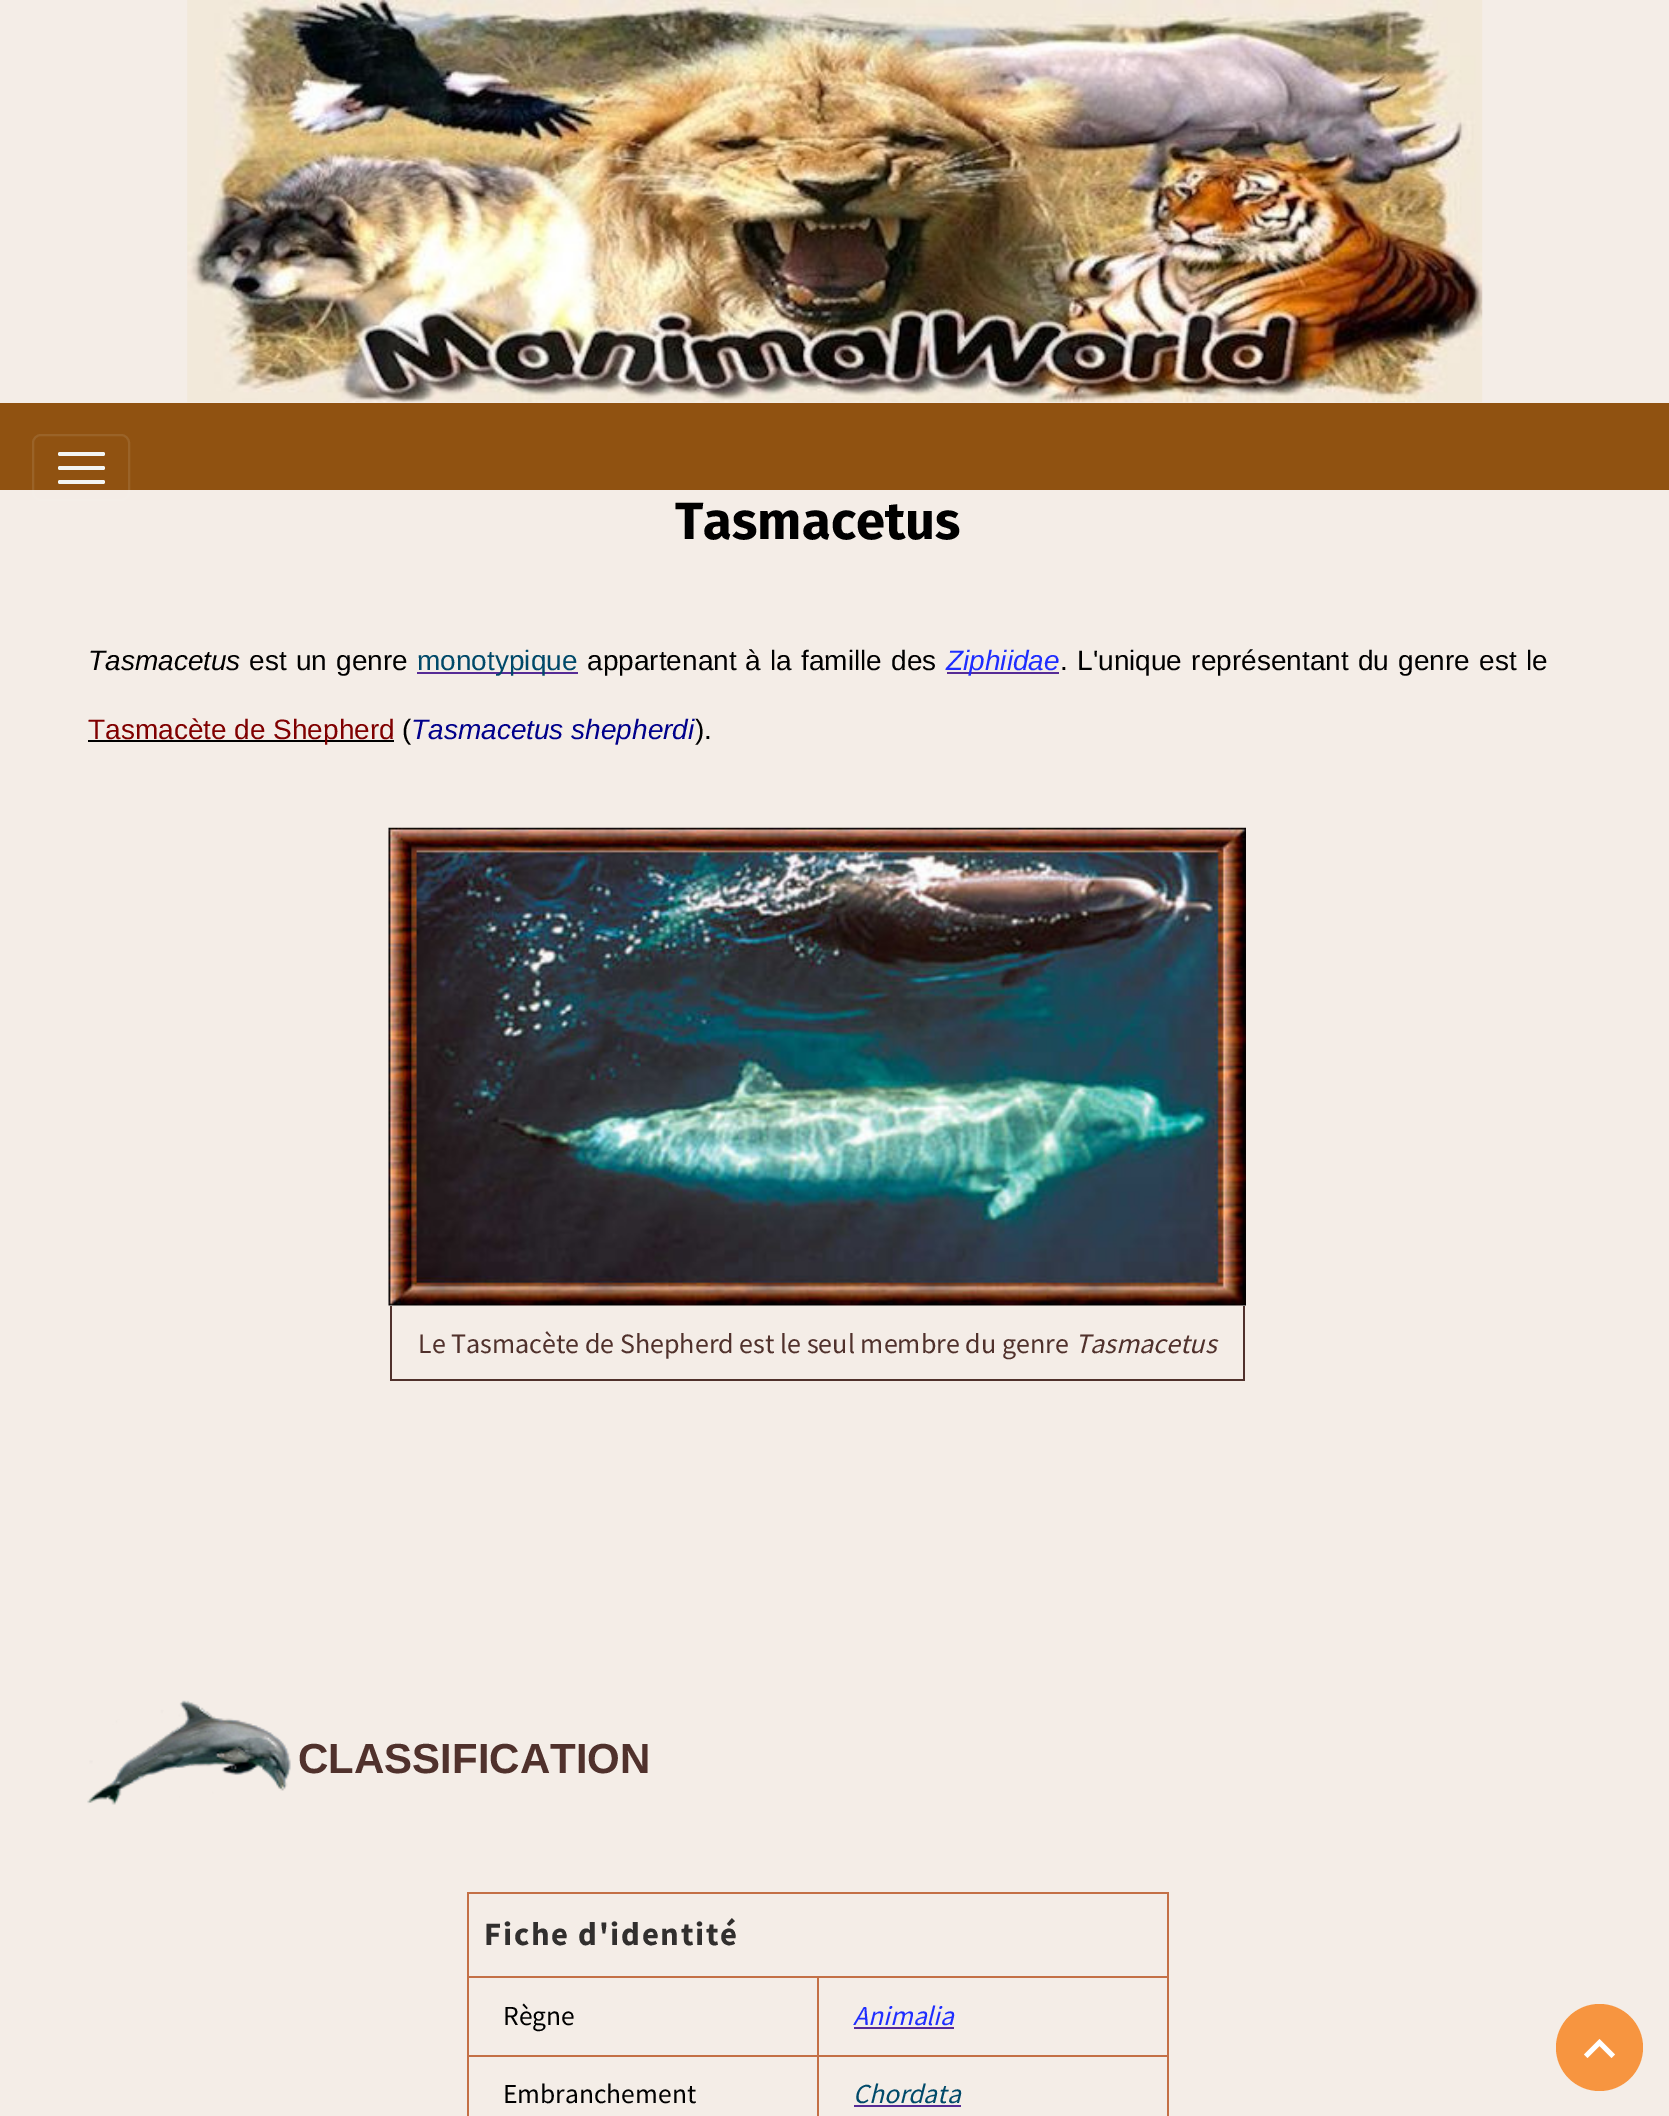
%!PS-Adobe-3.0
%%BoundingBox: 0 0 1669 2116
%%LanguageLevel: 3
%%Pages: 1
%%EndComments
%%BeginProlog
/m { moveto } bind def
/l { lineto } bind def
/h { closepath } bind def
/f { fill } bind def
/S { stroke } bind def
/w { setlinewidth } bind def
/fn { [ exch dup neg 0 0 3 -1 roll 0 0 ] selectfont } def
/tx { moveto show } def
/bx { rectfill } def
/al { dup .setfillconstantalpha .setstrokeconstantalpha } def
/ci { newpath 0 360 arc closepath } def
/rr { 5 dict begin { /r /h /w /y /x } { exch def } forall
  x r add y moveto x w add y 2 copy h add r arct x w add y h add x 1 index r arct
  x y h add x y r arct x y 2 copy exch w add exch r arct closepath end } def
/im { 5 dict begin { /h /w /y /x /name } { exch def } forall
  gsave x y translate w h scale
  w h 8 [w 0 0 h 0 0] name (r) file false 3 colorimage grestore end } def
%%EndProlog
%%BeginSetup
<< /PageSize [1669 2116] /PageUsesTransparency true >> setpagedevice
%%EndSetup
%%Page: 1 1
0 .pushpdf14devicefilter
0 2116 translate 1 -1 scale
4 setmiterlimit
0.957 0.929 0.906 setrgbcolor
0 0 1669 2116 bx
(image0.raw) 187 0 1296 403 im
0.565 0.322 0.067 setrgbcolor
0 403 1669 87 bx
0.1 al
0.953 0.965 0.957 setrgbcolor
2 w
33 435 96 65 8 rr S
1 al
58 452 47 4 2 rr f
58 466 47 4 2 rr f
58 480 47 4 2 rr f
/FiraSans-Bold 52.5 fn
0 setgray
(Tasmacetus) 675 539 tx
/LiberationSans-Italic 28 fn
(Tasmacetus) 88 670 tx
/LiberationSans-Regular 28 fn
249 670 m 1.5 0 32 (est un genre) widthshow
0.337 0.169 0.588 setrgbcolor
417 672 161 2 bx
0 0.286 0.412 setrgbcolor
(monotypique) 417 670 tx
0 setgray
587 670 m 1 0 32 (appartenant à) widthshow
770 670 m 1.5 0 32 (la famille des) widthshow
0.337 0.169 0.588 setrgbcolor
947 672 112 2 bx
/LiberationSans-Italic 28 fn
0.118 0.176 1 setrgbcolor
(Ziphiidae) 946 670 tx
/LiberationSans-Regular 28 fn
0 setgray
1060 670 m 1.5 0 32 (. L'unique représentant du genre est le) widthshow
88 740 306 2 bx
0.502 0 0 setrgbcolor
(Tasmacète de Shepherd) 88 739 tx
0 setgray
(\() 402 739 tx
/LiberationSans-Italic 28 fn
0 0 0.545 setrgbcolor
(Tasmacetus shepherdi) 411 739 tx
/LiberationSans-Regular 28 fn
0 setgray
(\).) 695 739 tx
(image1.raw) 388 827 858 479 im
0.314 0.192 0.173 setrgbcolor
1243 1306 2 75 bx
390 1379 854 2 bx
390 1306 2 75 bx
/SourceSansPro-Regular 28 fn
(Le Tasmacète de Shepherd est le seul membre du genre) 418 1353 tx
/SourceSansPro-Italic 28 fn
(Tasmacetus) 1075 1353 tx
(image2.raw) 87 1700 204 105 im
/LiberationSans-Bold 42 fn
(CLASSIFICATION) 298 1773 tx
0.769 0.439 0.275 setrgbcolor
467 1892 702 2 bx
1167 1892 2 224 bx
467 1892 2 224 bx
/SourceSansPro-Bold 32.75 fn
0.192 0.184 0.18 setrgbcolor
484 1945 m 1.75 0 (Fiche d'identité) ashow
0.769 0.439 0.275 setrgbcolor
817 1976 352 2 bx
817 2055 352 2 bx
817 2055 2 61 bx
467 2055 352 2 bx
817 1976 2 80 bx
467 1976 352 2 bx
/SourceSansPro-Regular 27.5 fn
0 setgray
(Règne) 503 2025 tx
/SourceSansPro-Italic 27.5 fn
0.118 0.176 1 setrgbcolor
(Animalia) 853 2025 tx
0.337 0.169 0.588 setrgbcolor
854 2027 100 2 bx
/SourceSansPro-Regular 27.5 fn
0 setgray
(Embranchement) 503 2103 tx
/SourceSansPro-Italic 27.5 fn
0 0.286 0.412 setrgbcolor
(Chordata) 853 2103 tx
0.337 0.169 0.588 setrgbcolor
854 2105 107 2 bx
0.969 0.584 0.251 setrgbcolor
1599.5 2047.5 43.5 ci f
1 setgray
1599.5 2039 m 1615 2054.5 l 1611.5 2058 l 1599.5 2046 l 1587.5 2058 l 1584 2054.5 l h f
.poppdf14devicefilter showpage
%%EOF
